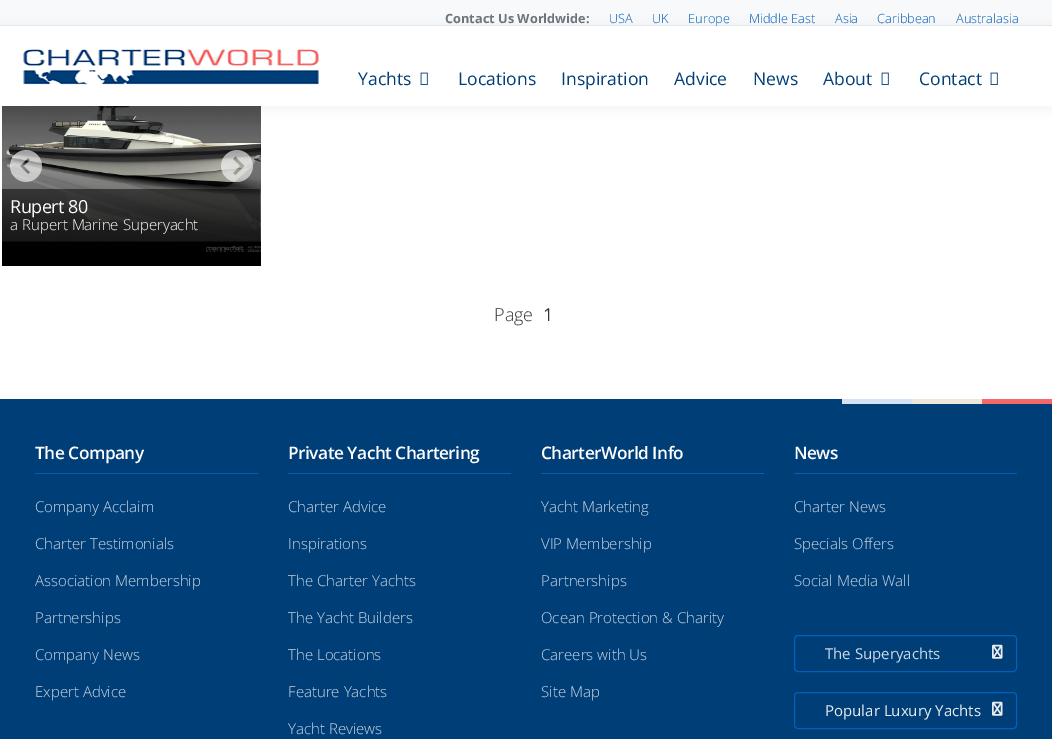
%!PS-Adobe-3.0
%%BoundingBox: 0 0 1052 739
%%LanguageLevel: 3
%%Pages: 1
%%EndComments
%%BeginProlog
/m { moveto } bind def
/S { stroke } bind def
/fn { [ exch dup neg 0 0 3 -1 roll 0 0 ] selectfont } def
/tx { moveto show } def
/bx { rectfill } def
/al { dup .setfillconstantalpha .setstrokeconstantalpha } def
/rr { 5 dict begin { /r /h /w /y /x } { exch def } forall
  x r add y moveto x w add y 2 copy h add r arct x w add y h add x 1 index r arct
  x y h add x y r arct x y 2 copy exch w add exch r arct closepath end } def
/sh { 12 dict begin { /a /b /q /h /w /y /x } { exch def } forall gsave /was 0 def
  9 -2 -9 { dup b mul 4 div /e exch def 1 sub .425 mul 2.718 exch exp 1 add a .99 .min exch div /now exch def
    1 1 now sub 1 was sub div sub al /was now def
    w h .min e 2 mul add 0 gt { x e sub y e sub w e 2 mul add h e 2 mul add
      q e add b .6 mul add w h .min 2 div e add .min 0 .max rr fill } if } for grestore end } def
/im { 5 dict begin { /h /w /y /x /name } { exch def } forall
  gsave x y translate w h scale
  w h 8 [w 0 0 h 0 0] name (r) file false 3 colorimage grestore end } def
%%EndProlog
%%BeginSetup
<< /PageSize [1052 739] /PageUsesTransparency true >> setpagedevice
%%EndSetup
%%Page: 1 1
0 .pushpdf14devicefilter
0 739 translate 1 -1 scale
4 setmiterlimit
1 setgray
0 0 1052 739 bx
0.973 0.976 0.98 setrgbcolor
0 0 1052 25 bx
0.914 0.925 0.937 setrgbcolor
0 25 1052 1 bx
/OpenSans-Bold 12.75 fn
0.424 0.459 0.49 setrgbcolor
(Contact Us Worldwide:) 445 23 tx
/OpenSans-Light 12.75 fn
0 0.376 0.729 setrgbcolor
(USA) 609 23 tx
(UK) 652 23 tx
(Europe) 688 23 tx
(Middle East) 749 23 tx
(Asia) 835 23 tx
(Caribbean) 877 23 tx
(Australasia) 956 23 tx
(image2.raw) 2 106 259 160 im
0 setgray
0 28 1052 80 0 7.5 0.05 sh
1 setgray
0 26 1052 80 bx
(image0.raw) 23 49 296 36 im
/OpenSans-Regular 17.5 fn
0 0.243 0.471 setrgbcolor
(Yachts) 358 85 tx
(image1.raw) 420 72 8 13 im
(Locations) 458 85 tx
(Inspiration) 561 85 tx
(Advice) 674 85 tx
(News) 753 85 tx
(About) 823 85 tx
(image1.raw) 881 72 8 13 im
(Contact) 919 85 tx
(image1.raw) 990 72 8 13 im
(image3.raw) 10 150 32 32 im
(image4.raw) 221 150 32 32 im
0.5 al
0 setgray
2 189 258 53 bx
/OpenSans-Regular 18 fn
1 al
1 setgray
10 213 m -0.5 0 (Rupert 80) ashow
/OpenSans-Light 15 fn
(a Rupert Marine Superyacht) 10 230 tx
/OpenSans-Light 18 fn
0.2 setgray
(Page) 494 321 tx
/OpenSans-Regular 18 fn
(1) 543 321 tx
0 0.243 0.471 setrgbcolor
0 399 1052 340 bx
0.827 0.89 0.945 setrgbcolor
842 399 70 5 bx
0.925 0.906 0.847 setrgbcolor
912 399 70 5 bx
0.965 0.408 0.404 setrgbcolor
982 399 70 5 bx
0 0.376 0.729 setrgbcolor
35 473 223 1 bx
/OpenSans-SemiBold 17.25 fn
1 setgray
35 459 m -0.5 0 (The Company) ashow
/OpenSans-Light 15 fn
0.8 0.847 0.894 setrgbcolor
(Company Acclaim) 35 512 tx
(Charter Testimonials) 35 549 tx
(Association Membership) 35 586 tx
(Partnerships) 35 623 tx
(Company News) 35 660 tx
(Expert Advice) 35 697 tx
0 0.376 0.729 setrgbcolor
288 473 223 1 bx
/OpenSans-SemiBold 17.25 fn
1 setgray
288 459 m -0.5 0 (Private Yacht Chartering) ashow
/OpenSans-Light 15 fn
0.8 0.847 0.894 setrgbcolor
(Charter Advice) 288 512 tx
(Inspirations) 288 549 tx
(The Charter Yachts) 288 586 tx
(The Yacht Builders) 288 623 tx
(The Locations) 288 660 tx
(Feature Yachts) 288 697 tx
(Yacht Reviews) 288 734 tx
0 0.376 0.729 setrgbcolor
541 473 223 1 bx
/OpenSans-SemiBold 17.25 fn
1 setgray
541 459 m -0.5 0 (CharterWorld Info) ashow
/OpenSans-Light 15 fn
0.8 0.847 0.894 setrgbcolor
(Yacht Marketing) 541 512 tx
(VIP Membership) 541 549 tx
(Partnerships) 541 586 tx
(Ocean Protection & Charity) 541 623 tx
(Careers with Us) 541 660 tx
(Site Map) 541 697 tx
0 0.376 0.729 setrgbcolor
794 473 223 1 bx
/OpenSans-SemiBold 17.25 fn
1 setgray
794 459 m -0.5 0 (News) ashow
/OpenSans-Light 15 fn
0.8 0.847 0.894 setrgbcolor
(Charter News) 794 512 tx
(Specials Offers) 794 549 tx
(Social Media Wall) 794 586 tx
0 0.376 0.729 setrgbcolor
794.5 635.5 222 36 3.5 rr S
/OpenSans-Regular 15 fn
0.8 0.847 0.894 setrgbcolor
(The Superyachts) 825 659 tx
(image5.raw) 992 644 11 15 im
0 0.376 0.729 setrgbcolor
794.5 692.5 222 36 3.5 rr S
0.914 0.925 0.937 setrgbcolor
(Popular Luxury Yachts) 825 716 tx
(image5.raw) 992 701 11 15 im
.poppdf14devicefilter showpage
%%EOF
